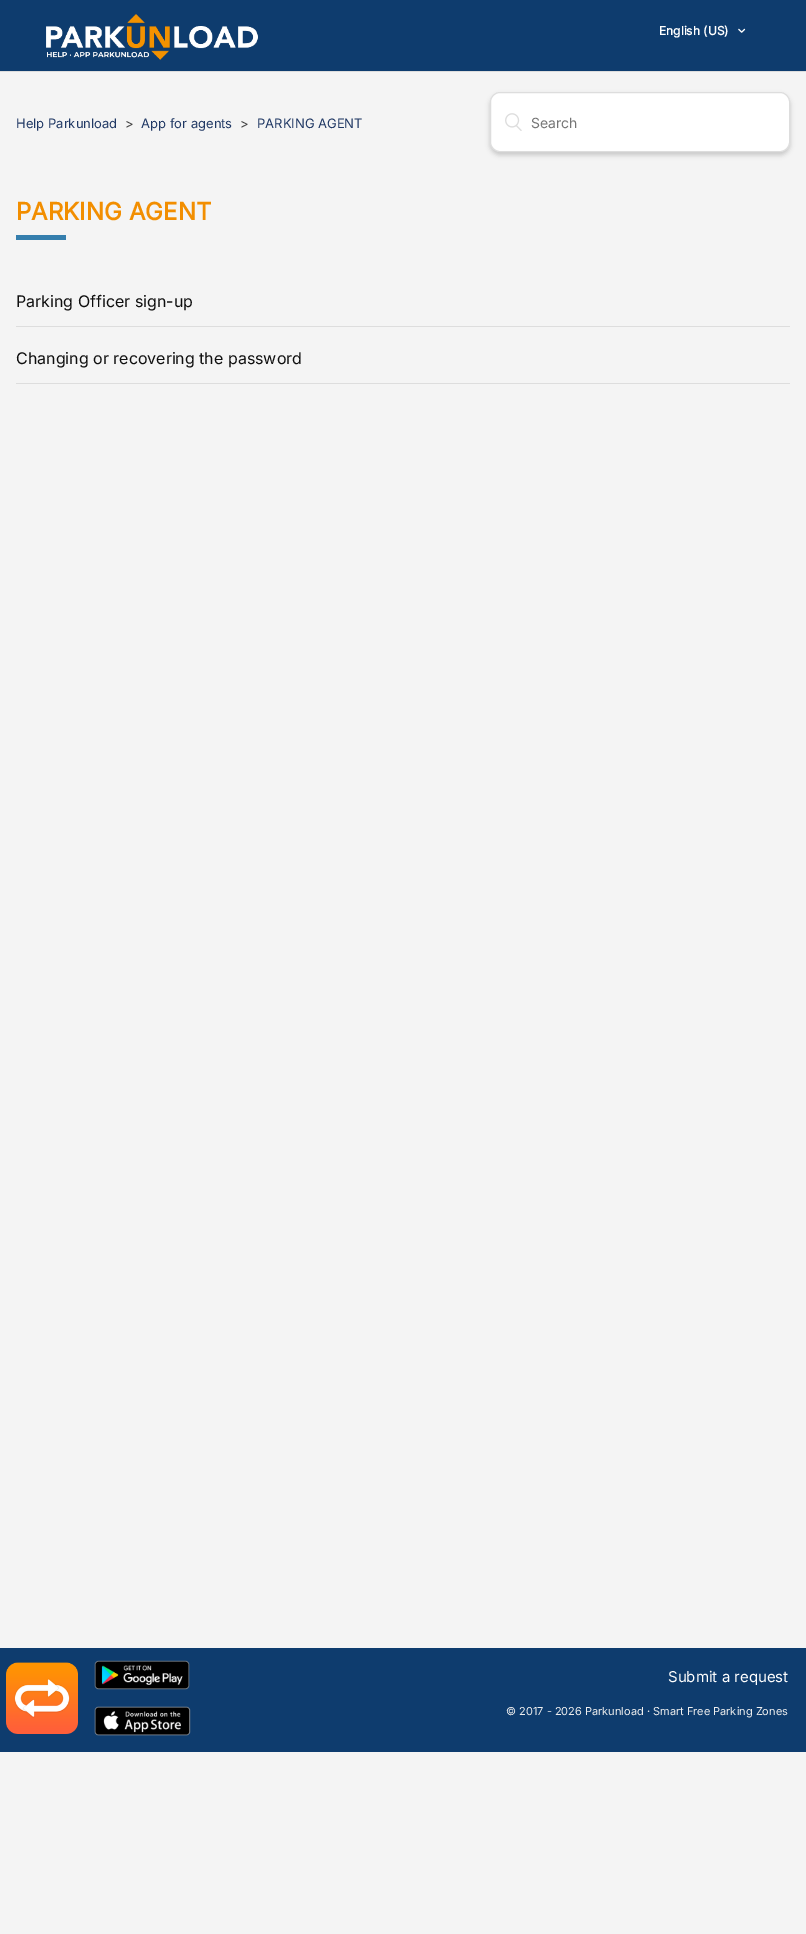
%!PS-Adobe-3.0
%%BoundingBox: 0 0 806 1934
%%LanguageLevel: 3
%%Pages: 1
%%EndComments
%%BeginProlog
/f { fill } bind def
/S { stroke } bind def
/q { gsave } bind def
/Q { grestore } bind def
/fn { [ exch dup neg 0 0 3 -1 roll 0 0 ] selectfont } def
/tx { moveto show } def
/bx { rectfill } def
/al { dup .setfillconstantalpha .setstrokeconstantalpha } def
/rr { 5 dict begin { /r /h /w /y /x } { exch def } forall
  x r add y moveto x w add y 2 copy h add r arct x w add y h add x 1 index r arct
  x y h add x y r arct x y 2 copy exch w add exch r arct closepath end } def
/sh { 12 dict begin { /a /b /q /h /w /y /x } { exch def } forall gsave /was 0 def
  9 -2 -9 { dup b mul 4 div /e exch def 1 sub .425 mul 2.718 exch exp 1 add a .99 .min exch div /now exch def
    1 1 now sub 1 was sub div sub al /was now def
    w h .min e 2 mul add 0 gt { x e sub y e sub w e 2 mul add h e 2 mul add
      q e add b .6 mul add w h .min 2 div e add .min 0 .max rr fill } if } for grestore end } def
/im { 5 dict begin { /h /w /y /x /name } { exch def } forall
  gsave x y translate w h scale
  w h 8 [w 0 0 h 0 0] name (r) file false 3 colorimage grestore end } def
%%EndProlog
%%BeginSetup
<< /PageSize [806 1934] /PageUsesTransparency true >> setpagedevice
%%EndSetup
%%Page: 1 1
0 .pushpdf14devicefilter
0 1934 translate 1 -1 scale
4 setmiterlimit
0.957 setgray
0 0 806 1934 bx
0.055 0.235 0.431 setrgbcolor
0 0 806 71 bx
(image0.raw) 46 14 212 46 im
/Inter-Bold 12 fn
1 setgray
(English \(US\)) 659 35 tx
(image1.raw) 738 28 8 5 im
0.867 setgray
0 71 806 1 bx
/Inter-Regular 13 fn
0.125 0.22 0.392 setrgbcolor
(Help Parkunload) 16 128 tx
0.259 setgray
(>) 125 128 tx
0.125 0.22 0.392 setrgbcolor
(App for agents) 141 128 tx
0.259 setgray
(>) 240 128 tx
0.125 0.22 0.392 setrgbcolor
(PARKING AGENT) 257 128 tx
0 setgray
490 95 300 60 10 2.5 0.18 sh
1 setgray
490.5 92.5 299 59 9.5 rr q f Q
0.867 setgray
S
(image2.raw) 505 113 17 18 im
/Inter-Regular 14 fn
0.459 setgray
(Search) 531 128 tx
/Inter-Bold 24 fn
0.949 0.557 0 setrgbcolor
(PARKING AGENT) 16 220 tx
0.208 0.494 0.678 setrgbcolor
16 235 50 5 bx
0.867 setgray
16 326 774 1 bx
/Inter-Regular 16 fn
0.059 setgray
(Parking Officer sign-up) 16 307 tx
0.867 setgray
16 383 774 1 bx
0.059 setgray
(Changing or recovering the password) 16 364 tx
0.055 0.235 0.431 setrgbcolor
0 1648 806 104 bx
(image3.raw) 6 1662 72 72 im
(image4.raw) 94 1660 96 30 im
(image5.raw) 94 1706 97 30 im
/Inter-Regular 15 fn
1 setgray
(Submit a request) 668 1682 tx
/Inter-Regular 11 fn
0.933 setgray
(© 2017 - 2026 Parkunload · Smart Free Parking Zones) 506 1715 tx
.poppdf14devicefilter showpage
%%EOF
